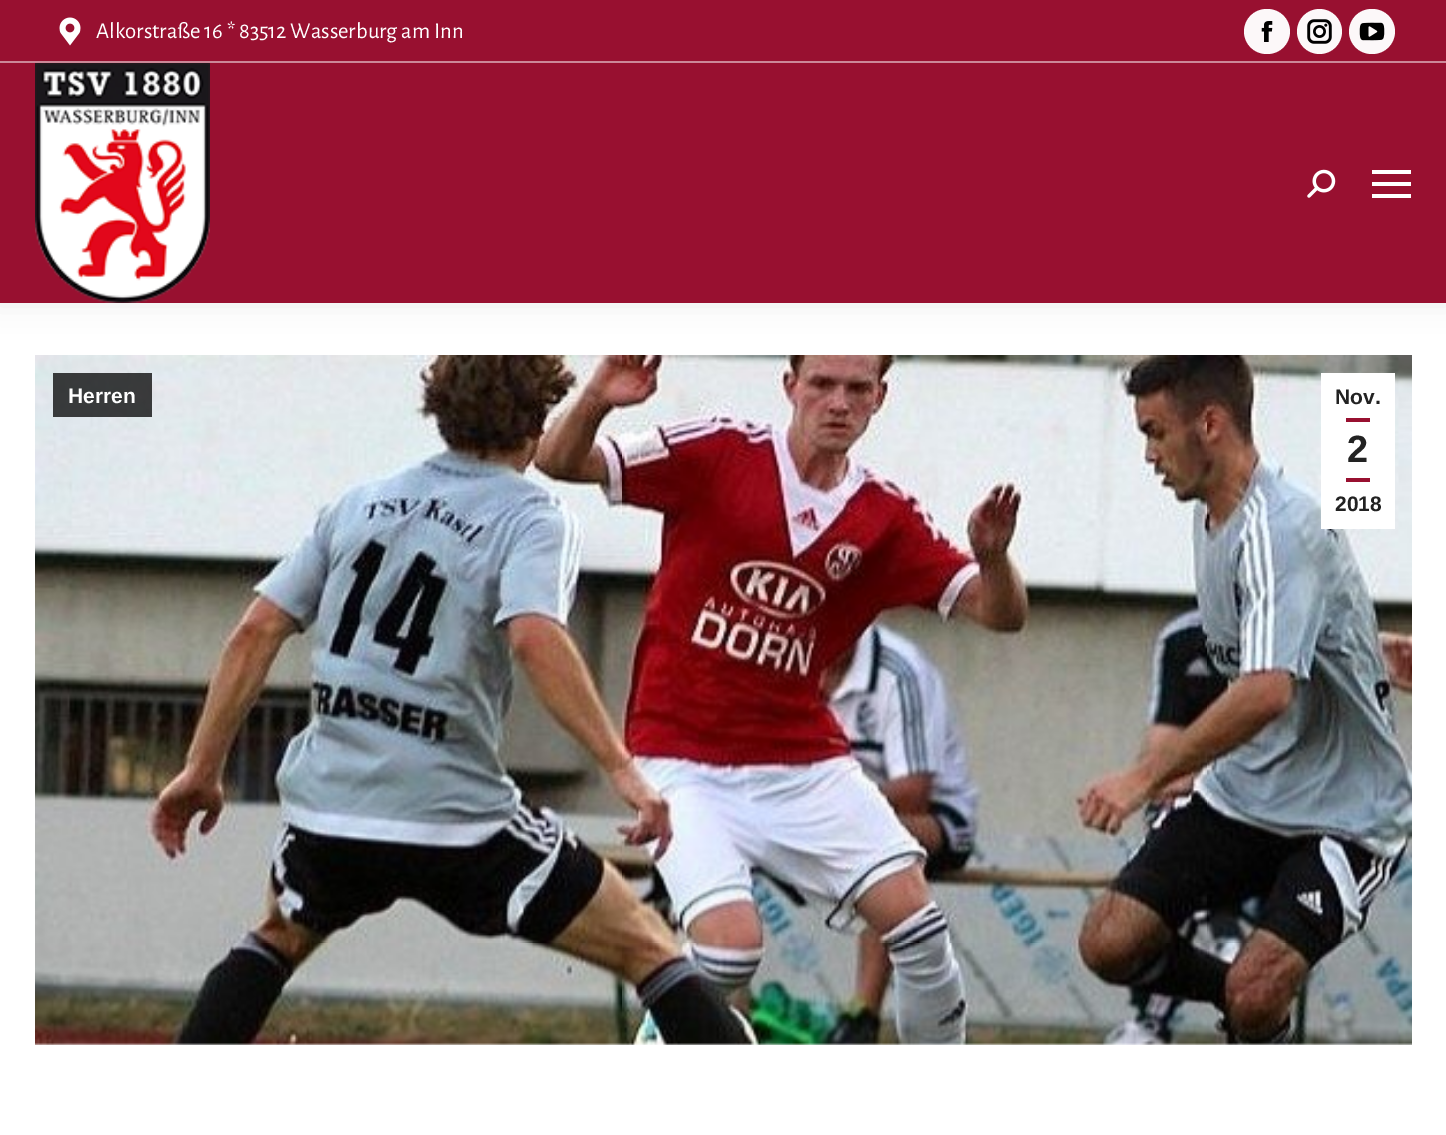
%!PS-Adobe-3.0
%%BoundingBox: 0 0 1446 1135
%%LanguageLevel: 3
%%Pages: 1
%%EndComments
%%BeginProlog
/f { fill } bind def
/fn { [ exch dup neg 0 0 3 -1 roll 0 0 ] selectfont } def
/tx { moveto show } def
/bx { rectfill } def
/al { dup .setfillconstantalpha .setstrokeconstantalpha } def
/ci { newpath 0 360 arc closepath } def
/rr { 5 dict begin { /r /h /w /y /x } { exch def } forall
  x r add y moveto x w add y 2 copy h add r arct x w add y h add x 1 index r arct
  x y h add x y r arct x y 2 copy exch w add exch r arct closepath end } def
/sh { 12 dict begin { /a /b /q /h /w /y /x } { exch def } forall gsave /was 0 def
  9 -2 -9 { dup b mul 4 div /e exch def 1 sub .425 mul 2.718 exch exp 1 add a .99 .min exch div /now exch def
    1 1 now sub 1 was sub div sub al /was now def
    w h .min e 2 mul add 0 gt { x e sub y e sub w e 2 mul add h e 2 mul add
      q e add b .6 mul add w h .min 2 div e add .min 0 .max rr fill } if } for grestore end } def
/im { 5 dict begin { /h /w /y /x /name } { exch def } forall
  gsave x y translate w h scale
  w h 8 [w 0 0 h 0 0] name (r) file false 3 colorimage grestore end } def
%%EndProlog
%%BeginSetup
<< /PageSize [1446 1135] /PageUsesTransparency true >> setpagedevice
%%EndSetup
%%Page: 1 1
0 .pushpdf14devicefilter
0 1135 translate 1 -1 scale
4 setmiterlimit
1 setgray
0 0 1446 1135 bx
0 setgray
-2 -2 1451 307 0 13 0.07 sh
0.596 0.063 0.188 setrgbcolor
0 0 1446 303 bx
(image0.raw) 59 17 22 29 im
/AlegreyaSans-Regular 22.75 fn
1 setgray
(Alkorstraße 16 * 83512 Wasserburg am Inn) 96 38 tx
0.988 0.973 0.976 setrgbcolor
1244 9 46 45 22.5 rr f
(image1.raw) 1261 21 12 21 im
1319.5 31.5 22.5 ci f
(image2.raw) 1307 19 25 25 im
1349 9 46 45 22.5 rr f
(image3.raw) 1359 22 26 19 im
0.8 0.533 0.596 setrgbcolor
0 61 1446 2 bx
(image4.raw) 35 63 175 240 im
(image5.raw) 1307 169 29 29 im
1 setgray
1372 170 39 4 bx
1372 182 39 4 bx
1372 194 39 4 bx
(image6.raw) 35 355 1377 690 im
0.75 al
0 setgray
53 373 99 44 bx
/LiberationSans-Bold 21 fn
1 al
1 setgray
(Herren) 68 403 tx
1321 373 74 156 bx
0.133 setgray
(Nov.) 1335 404 tx
0.596 0.063 0.188 setrgbcolor
1346 418 24 4 bx
/LiberationSans-Bold 38 fn
0.133 setgray
(2) 1347 462 tx
0.596 0.063 0.188 setrgbcolor
1346 478 24 4 bx
/LiberationSans-Bold 21 fn
0.133 setgray
(2018) 1335 511 tx
.poppdf14devicefilter showpage
%%EOF
